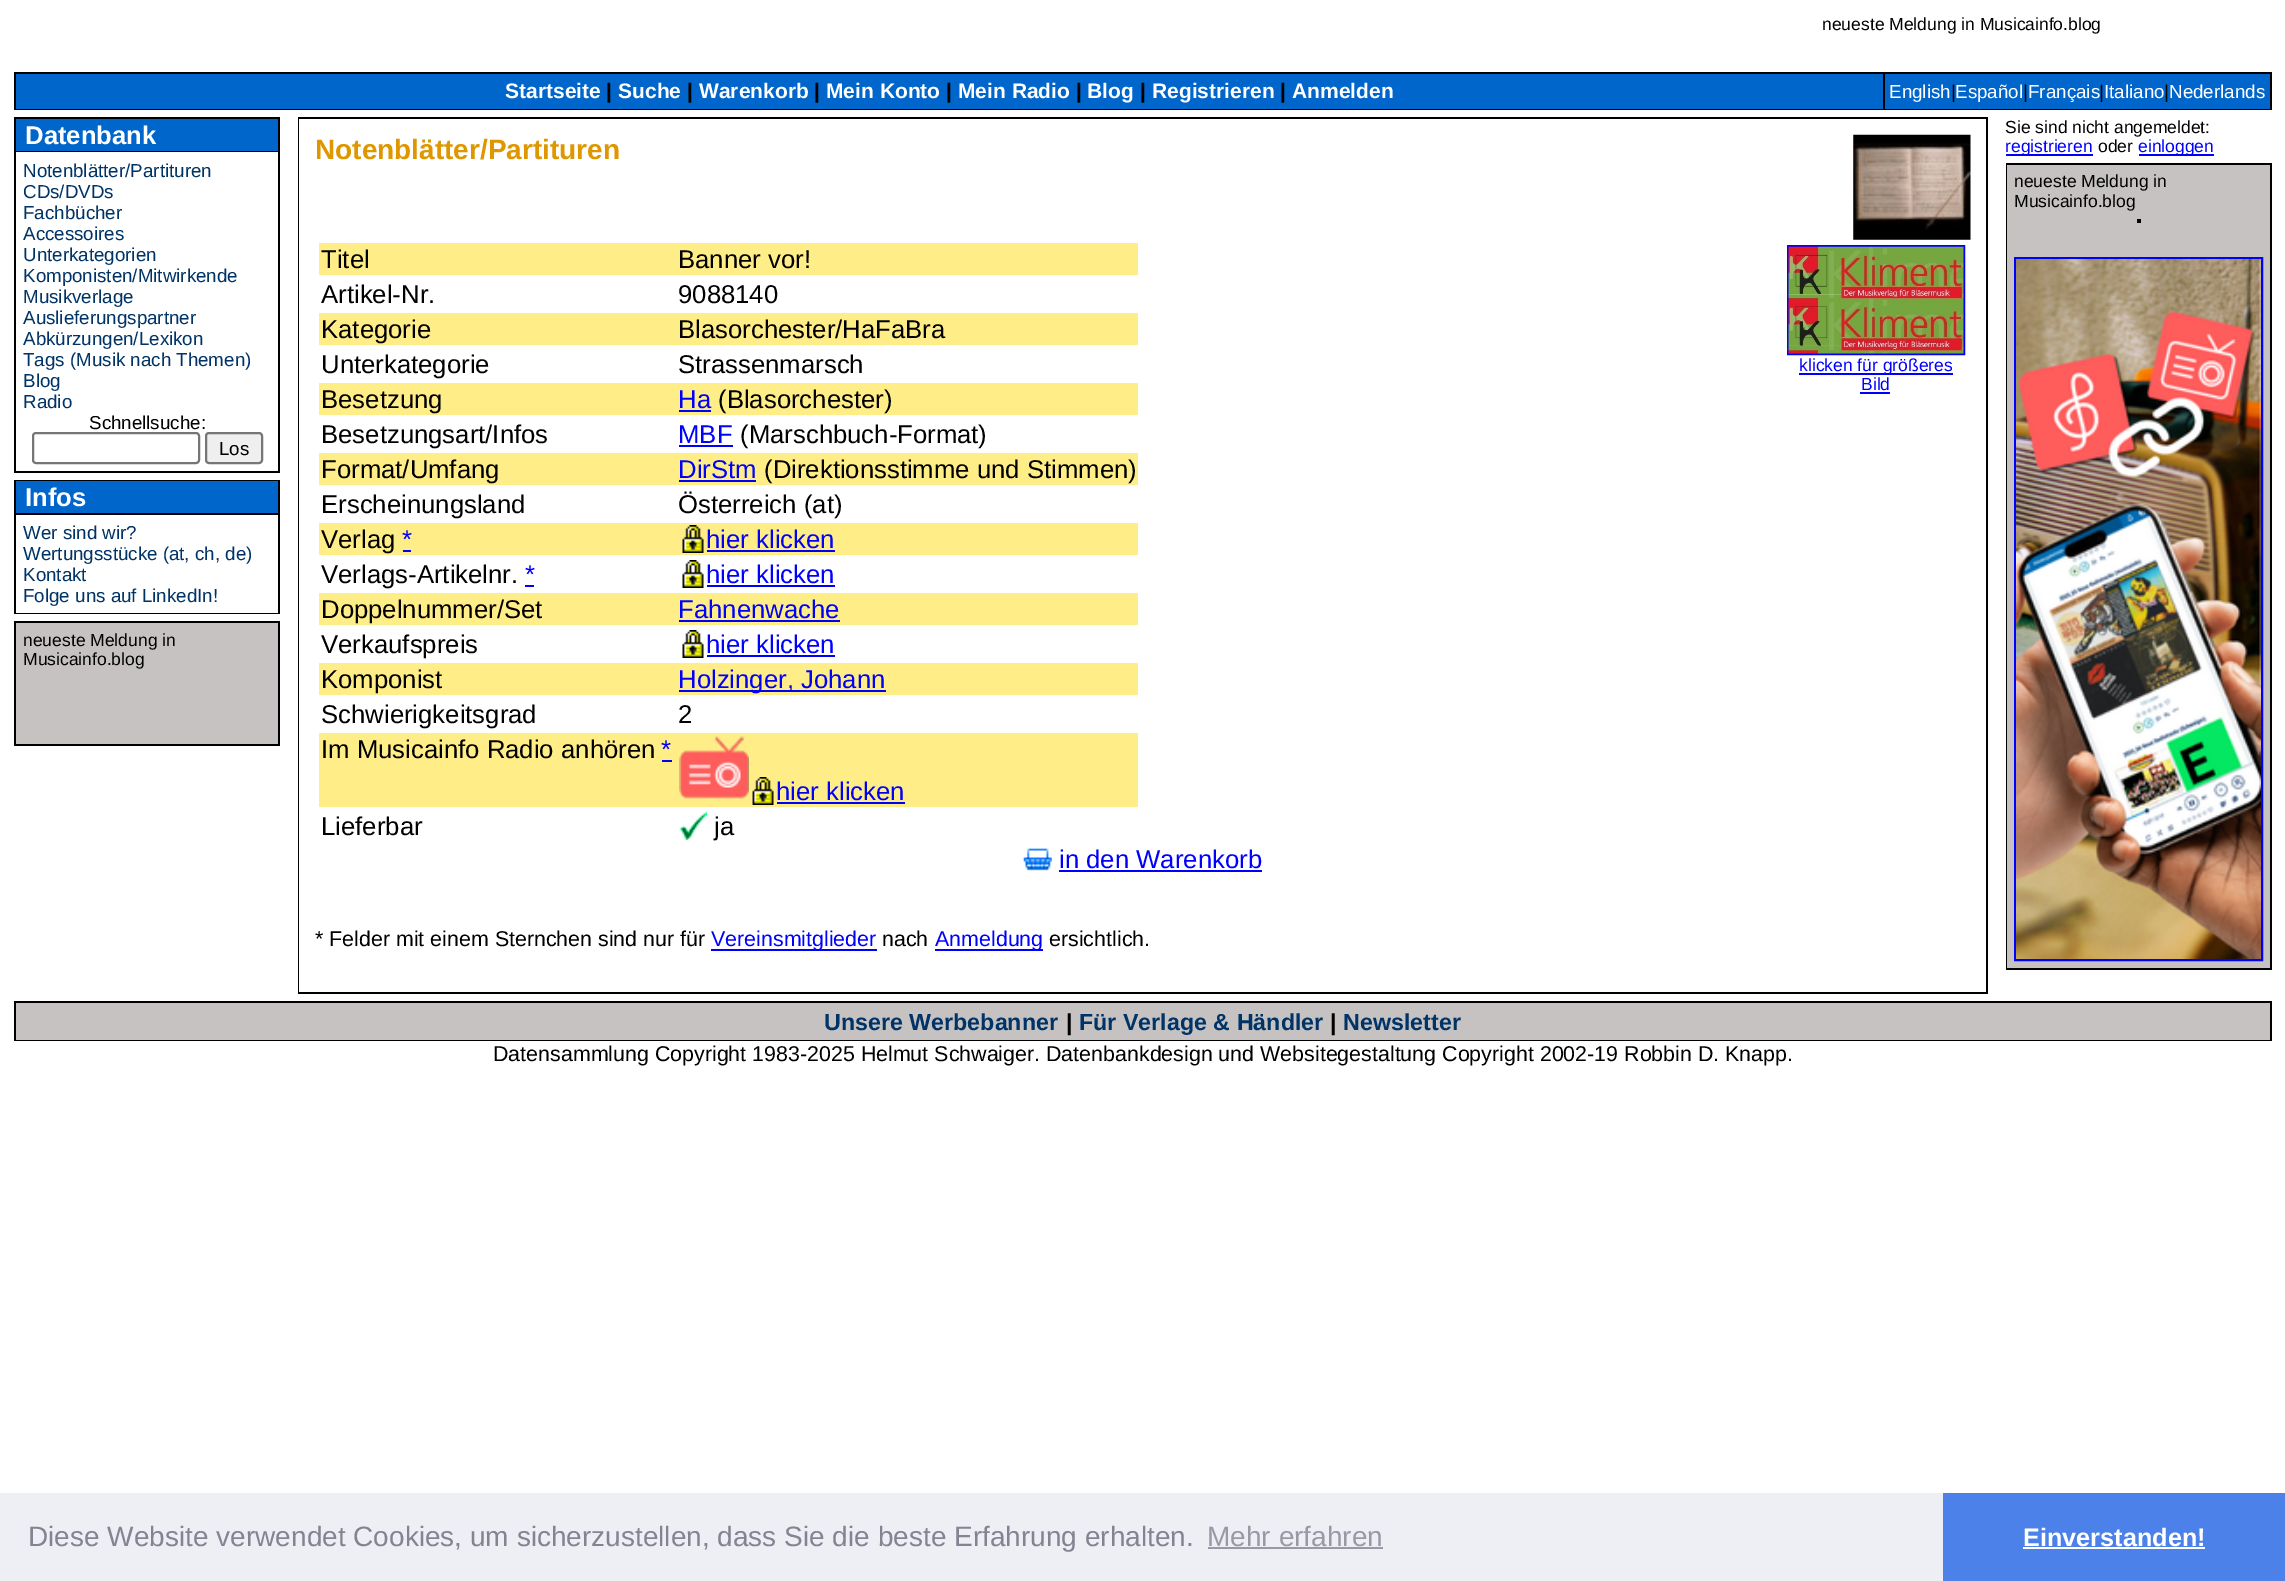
%!PS-Adobe-3.0
%%BoundingBox: 0 0 2285 1581
%%LanguageLevel: 3
%%Pages: 1
%%EndComments
%%BeginProlog
/f { fill } bind def
/S { stroke } bind def
/q { gsave } bind def
/Q { grestore } bind def
/w { setlinewidth } bind def
/fn { [ exch dup neg 0 0 3 -1 roll 0 0 ] selectfont } def
/tx { moveto show } def
/bx { rectfill } def
/rr { 5 dict begin { /r /h /w /y /x } { exch def } forall
  x r add y moveto x w add y 2 copy h add r arct x w add y h add x 1 index r arct
  x y h add x y r arct x y 2 copy exch w add exch r arct closepath end } def
/im { 5 dict begin { /h /w /y /x /name } { exch def } forall
  gsave x y translate w h scale
  w h 8 [w 0 0 h 0 0] name (r) file false 3 colorimage grestore end } def
%%EndProlog
%%BeginSetup
<< /PageSize [2285 1581] >> setpagedevice
%%EndSetup
%%Page: 1 1
0 1581 translate 1 -1 scale
4 setmiterlimit
1 setgray
0 0 2285 1581 bx
/LiberationSans-Regular 17.5 fn
0 setgray
(neueste Meldung in Musicainfo.blog) 1822 30 tx
14 72 2258 38 bx
0 0.4 0.8 setrgbcolor
16 74 1867 35 bx
/LiberationSans-Bold 21 fn
1 setgray
(Startseite) 505 98 tx
0 setgray
(|) 606 98 tx
1 setgray
(Suche) 618 98 tx
0 setgray
(|) 687 98 tx
1 setgray
(Warenkorb) 699 98 tx
0 setgray
(|) 814 98 tx
1 setgray
(Mein Konto) 826 98 tx
0 setgray
(|) 946 98 tx
1 setgray
(Mein Radio) 958 98 tx
0 setgray
(|) 1076 98 tx
1 setgray
(Blog) 1087 98 tx
0 setgray
(|) 1140 98 tx
1 setgray
(Registrieren) 1152 98 tx
0 setgray
(|) 1280 98 tx
1 setgray
(Anmelden) 1292 98 tx
0 0.4 0.8 setrgbcolor
1885 74 385 35 bx
/LiberationSans-Regular 18.75 fn
1 setgray
(English) 1889 98 tx
0 setgray
(|) 1951 98 tx
1 setgray
(Español) 1955 98 tx
0 setgray
(|) 2023 98 tx
1 setgray
(Français) 2028 98 tx
0 setgray
(|) 2099 98 tx
1 setgray
(Italiano) 2104 98 tx
0 setgray
(|) 2164 98 tx
1 setgray
(Nederlands) 2169 98 tx
0 setgray
14 117 266 356 bx
0 0.4 0.8 setrgbcolor
16 119 262 32 bx
/LiberationSans-Bold 25.7 fn
1 setgray
(Datenbank) 25 144 tx
16 152 262 319 bx
/LiberationSans-Regular 18.75 fn
0 0.2 0.4 setrgbcolor
(Notenblätter/Partituren) 23 177 tx
(CDs/DVDs) 23 198 tx
(Fachbücher) 23 219 tx
(Accessoires) 23 240 tx
(Unterkategorien) 23 261 tx
(Komponisten/Mitwirkende) 23 282 tx
(Musikverlage) 23 303 tx
(Auslieferungspartner) 23 324 tx
(Abkürzungen/Lexikon) 23 345 tx
(Tags \(Musik nach Themen\)) 23 366 tx
(Blog) 23 387 tx
(Radio) 23 408 tx
0 setgray
(Schnellsuche:) 89 429 tx
0.463 setgray
2 w
33 433 166 30 3 rr S
0.937 setgray
206 433 56 30 3 rr q f Q
0.463 setgray
S
0 setgray
(Los) 219 455 tx
14 480 266 134 bx
0 0.4 0.8 setrgbcolor
16 481 262 32 bx
/LiberationSans-Bold 25.7 fn
1 setgray
(Infos) 25 506 tx
16 515 262 98 bx
/LiberationSans-Regular 18.75 fn
0 0.2 0.4 setrgbcolor
(Wer sind wir?) 23 539 tx
(Wertungsstücke \(at, ch, de\)) 23 560 tx
(Kontakt) 23 581 tx
(Folge uns auf LinkedIn!) 23 602 tx
0 setgray
14 621 266 125 bx
0.776 0.761 0.761 setrgbcolor
16 623 262 121 bx
/LiberationSans-Regular 17.5 fn
0 setgray
(neueste Meldung in) 23 646 tx
(Musicainfo.blog) 23 665 tx
298 117 1690 877 bx
1 setgray
299 119 1687 873 bx
/LiberationSans-Bold 28 fn
0.875 0.592 0 setrgbcolor
(Notenblätter/Partituren) 315 159 tx
(image0.raw) 1853 134 118 106 im
1 0.933 0.533 setrgbcolor
319 243 819 32 bx
/LiberationSans-Regular 25.7 fn
0 setgray
(Titel) 321 268 tx
(Banner vor!) 678 268 tx
(Artikel-Nr.) 321 303 tx
(9088140) 678 303 tx
1 0.933 0.533 setrgbcolor
319 313 819 32 bx
0 setgray
(Kategorie) 321 338 tx
(Blasorchester/HaFaBra) 678 338 tx
(Unterkategorie) 321 373 tx
(Strassenmarsch) 678 373 tx
1 0.933 0.533 setrgbcolor
319 383 819 32 bx
0 setgray
(Besetzung) 321 408 tx
0 0 1 setrgbcolor
(Ha) 678 408 tx
679 410 32 2 bx
0 setgray
(\(Blasorchester\)) 718 408 tx
(Besetzungsart/Infos) 321 443 tx
0 0 1 setrgbcolor
(MBF) 678 443 tx
679 445 54 2 bx
0 setgray
(\(Marschbuch-Format\)) 740 443 tx
1 0.933 0.533 setrgbcolor
319 453 819 32 bx
0 setgray
(Format/Umfang) 321 478 tx
0 0 1 setrgbcolor
(DirStm) 678 478 tx
679 480 77 2 bx
0 setgray
(\(Direktionsstimme und Stimmen\)) 764 478 tx
(Erscheinungsland) 321 513 tx
(Österreich \(at\)) 678 513 tx
1 0.933 0.533 setrgbcolor
319 523 819 32 bx
0 setgray
(Verlag) 321 548 tx
0 0 1 setrgbcolor
(*) 402 548 tx
403 550 8 2 bx
(image1.raw) 682 525 22 28 im
(hier klicken) 706 548 tx
707 550 128 2 bx
0 setgray
(Verlags-Artikelnr.) 321 583 tx
0 0 1 setrgbcolor
(*) 525 583 tx
525 585 9 2 bx
(image2.raw) 682 560 22 28 im
(hier klicken) 706 583 tx
707 585 128 2 bx
1 0.933 0.533 setrgbcolor
319 593 819 32 bx
0 setgray
(Doppelnummer/Set) 321 618 tx
0 0 1 setrgbcolor
(Fahnenwache) 678 618 tx
679 620 161 2 bx
0 setgray
(Verkaufspreis) 321 653 tx
(image2.raw) 682 630 22 28 im
0 0 1 setrgbcolor
(hier klicken) 706 653 tx
707 655 128 2 bx
1 0.933 0.533 setrgbcolor
319 663 819 32 bx
0 setgray
(Komponist) 321 688 tx
0 0 1 setrgbcolor
679 690 207 2 bx
(Holzinger, Johann) 678 688 tx
0 setgray
(Schwierigkeitsgrad) 321 723 tx
(2) 678 723 tx
1 0.933 0.533 setrgbcolor
319 733 819 74 bx
0 setgray
(Im Musicainfo Radio anhören) 321 758 tx
0 0 1 setrgbcolor
(*) 661 758 tx
662 760 10 2 bx
(image3.raw) 679 736 70 63 im
(image4.raw) 752 777 22 28 im
(hier klicken) 776 800 tx
777 802 128 2 bx
0 setgray
(Lieferbar) 321 835 tx
(image5.raw) 679 812 28 28 im
(ja) 714 835 tx
0 0 1 setrgbcolor
1788 246 176 108 rectstroke
(image6.raw) 1788 246 176 108 im
1799 373 154 2 bx
/LiberationSans-Regular 17.5 fn
(klicken für größeres) 1799 371 tx
(Bild) 1861 390 tx
1860 392 30 2 bx
(image7.raw) 1023 848 29 23 im
/LiberationSans-Regular 25.7 fn
(in den Warenkorb) 1059 868 tx
1059 870 203 2 bx
/LiberationSans-Regular 21.4 fn
0 setgray
(* Felder mit einem Sternchen sind nur für) 315 946 tx
0 0 1 setrgbcolor
711 949 166 2 bx
(Vereinsmitglieder) 711 946 tx
0 setgray
(nach) 882 946 tx
0 0 1 setrgbcolor
935 949 108 2 bx
(Anmeldung) 935 946 tx
0 setgray
(ersichtlich.) 1049 946 tx
/LiberationSans-Regular 17.5 fn
(Sie sind nicht angemeldet:) 2005 133 tx
0 0 1 setrgbcolor
2006 154 87 2 bx
(registrieren) 2005 152 tx
0 setgray
(oder) 2098 152 tx
0 0 1 setrgbcolor
2139 154 75 2 bx
(einloggen) 2138 152 tx
0 setgray
2006 163 266 807 bx
0.776 0.761 0.761 setrgbcolor
2007 165 263 803 bx
0 setgray
(neueste Meldung in) 2014 187 tx
(Musicainfo.blog) 2014 207 tx
2137 219 4 2 bx
2137 221 4 2 bx
0 0 1 setrgbcolor
2015 258 247 702 rectstroke
(image8.raw) 2016 259 245 700 im
0 setgray
14 1001 2258 40 bx
0.776 0.761 0.761 setrgbcolor
16 1003 2254 37 bx
/LiberationSans-Bold 23.25 fn
0 0.2 0.4 setrgbcolor
(Unsere Werbebanner) 824 1030 tx
0 setgray
(|) 1066 1030 tx
0 0.2 0.4 setrgbcolor
(Für Verlage & Händler) 1079 1030 tx
0 setgray
(|) 1330 1030 tx
0 0.2 0.4 setrgbcolor
(Newsletter) 1343 1030 tx
/LiberationSans-Regular 21.4 fn
0 setgray
(Datensammlung Copyright 1983-2025 Helmut Schwaiger. Datenbankdesign und Websitegestaltung Copyright 2002-19 Robbin D. Knapp.) 493 1061 tx
0.929 0.937 0.961 setrgbcolor
0 1493 1943 88 bx
/LiberationSans-Regular 28 fn
0.514 0.514 0.569 setrgbcolor
(Diese Website verwendet Cookies, um sicherzustellen, dass Sie die beste Erfahrung erhalten.) 28 1546 tx
0.596 0.6 0.647 setrgbcolor
(Mehr erfahren) 1207 1546 tx
1208 1547 175 2 bx
0.294 0.506 0.91 setrgbcolor
1943 1493 342 88 bx
/LiberationSans-Bold 25.25 fn
1 setgray
(Einverstanden!) 2023 1546 tx
2023 1547 182 2 bx
showpage
%%EOF
